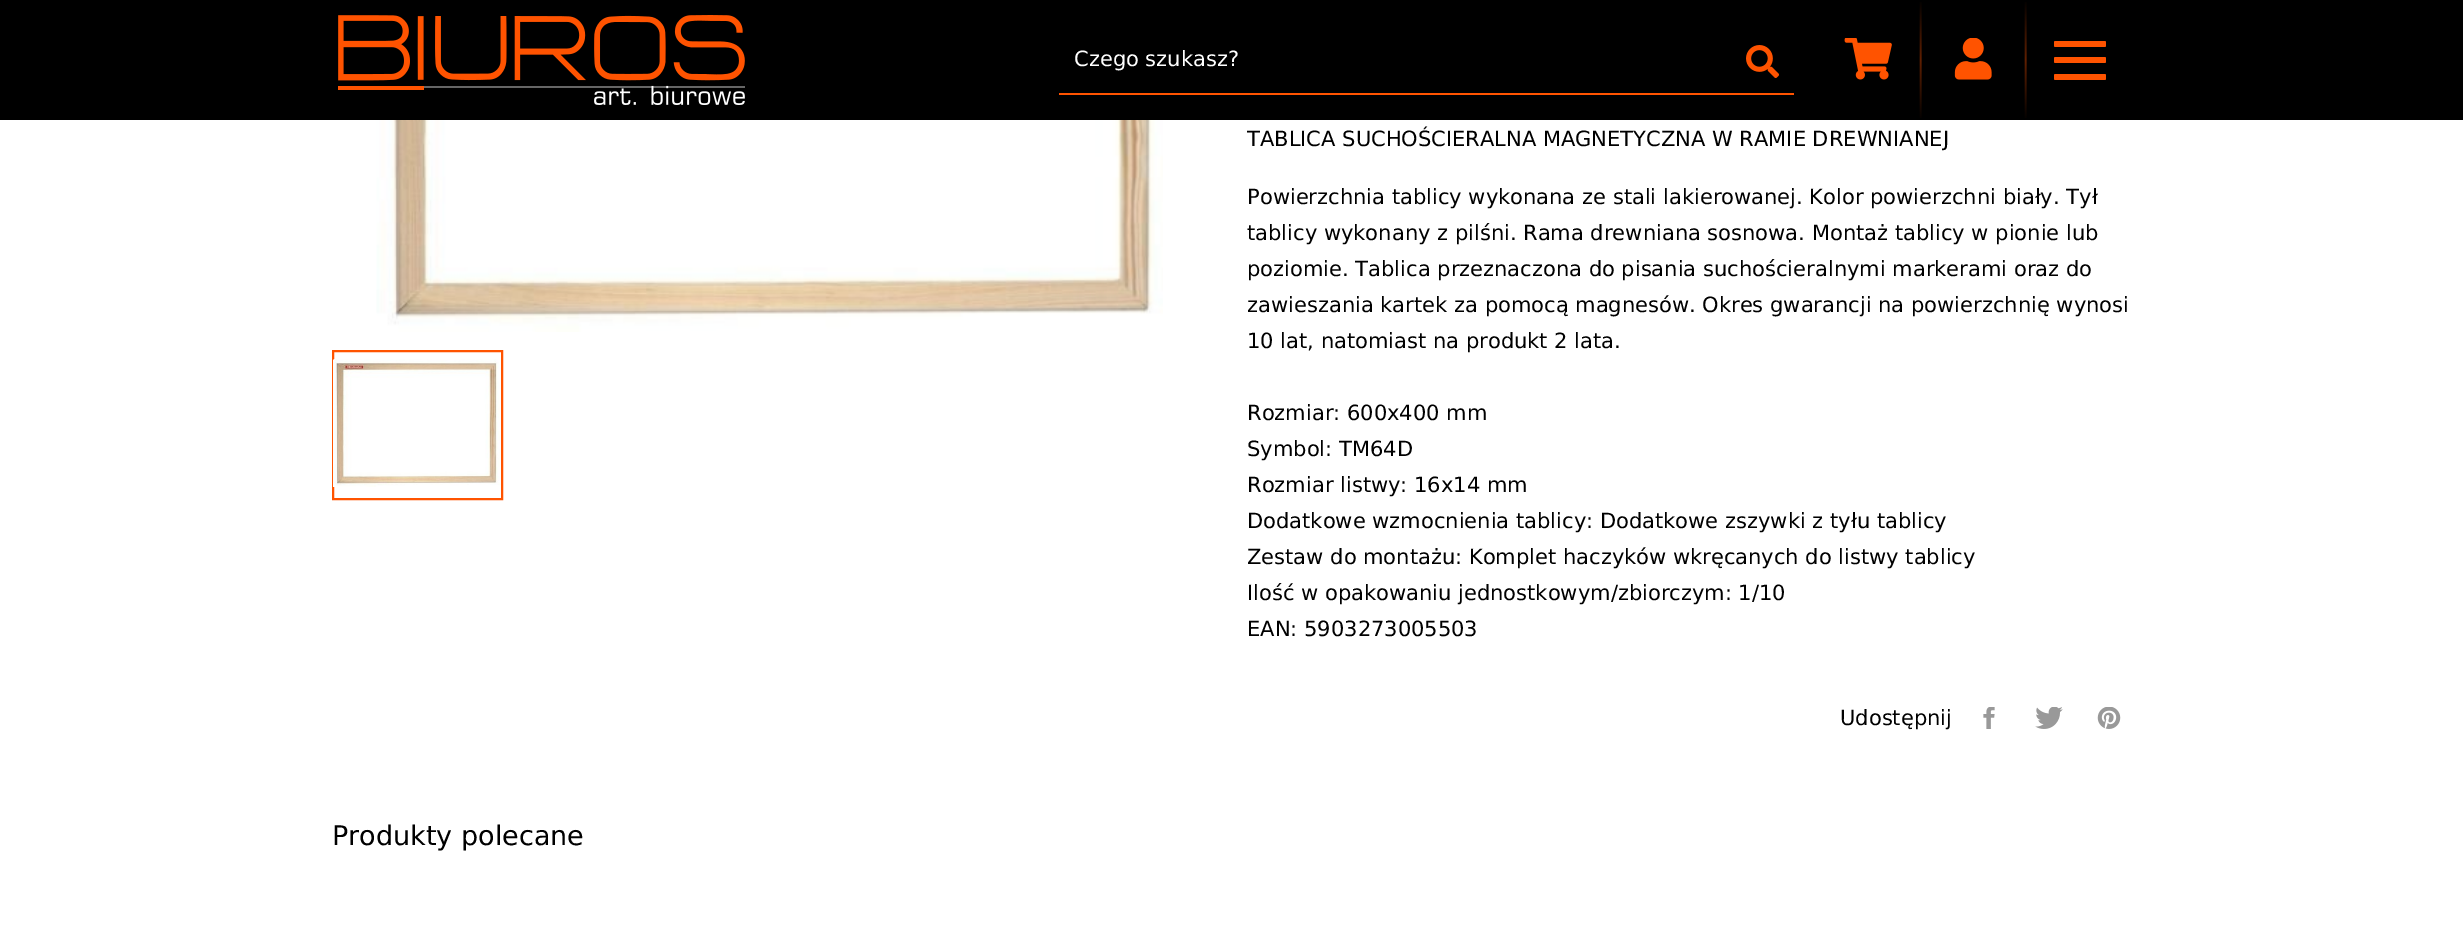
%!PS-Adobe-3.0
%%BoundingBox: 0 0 2463 928
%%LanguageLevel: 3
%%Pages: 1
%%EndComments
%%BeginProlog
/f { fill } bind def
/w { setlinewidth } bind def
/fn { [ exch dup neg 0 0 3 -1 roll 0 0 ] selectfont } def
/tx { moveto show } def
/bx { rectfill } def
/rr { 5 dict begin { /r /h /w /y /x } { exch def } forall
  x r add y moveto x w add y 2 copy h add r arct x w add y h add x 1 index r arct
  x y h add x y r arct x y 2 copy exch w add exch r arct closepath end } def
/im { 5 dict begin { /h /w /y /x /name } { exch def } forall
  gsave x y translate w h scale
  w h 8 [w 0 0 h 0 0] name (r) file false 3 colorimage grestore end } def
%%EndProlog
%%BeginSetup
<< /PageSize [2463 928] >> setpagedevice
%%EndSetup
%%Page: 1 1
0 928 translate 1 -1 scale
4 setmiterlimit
1 setgray
0 0 2463 928 bx
0 setgray
0 0 2463 120 bx
(image0.raw) 338 15 407 90 im
1 0.325 0 setrgbcolor
1059 93 735 2 bx
/DejaVuSans-Regular 21 fn
1 setgray
(Czego szukasz?) 1074 66 tx
(image1.raw) 1746 45 33 33 im
(image2.raw) 1919 2 3 116 im
(image3.raw) 1844 38 48 42 im
(image2.raw) 2024 2 3 116 im
(image4.raw) 1954 38 38 42 im
1 0.325 0 setrgbcolor
2054 57 52 6 1.5 rr f
2054 41 52 6 1.5 rr f
2054 74 52 6 1.5 rr f
(image5.raw) 376 120 787 212 im
2 w
333 351 169 148 rectstroke
(image6.raw) 333 359 168 128 im
0 setgray
(TABLICA SUCHOŚCIERALNA MAGNETYCZNA W RAMIE DREWNIANEJ) 1247 146 tx
(Powierzchnia tablicy wykonana ze stali lakierowanej. Kolor powierzchni biały. Tył) 1247 204 tx
(tablicy wykonany z pilśni. Rama drewniana sosnowa. Montaż tablicy w pionie lub) 1247 240 tx
(poziomie. Tablica przeznaczona do pisania suchościeralnymi markerami oraz do) 1247 276 tx
(zawieszania kartek za pomocą magnesów. Okres gwarancji na powierzchnię wynosi) 1247 312 tx
(10 lat, natomiast na produkt 2 lata.) 1247 348 tx
(Rozmiar: 600x400 mm) 1247 420 tx
(Symbol: TM64D) 1247 456 tx
(Rozmiar listwy: 16x14 mm) 1247 492 tx
(Dodatkowe wzmocnienia tablicy: Dodatkowe zszywki z tyłu tablicy) 1247 528 tx
(Zestaw do montażu: Komplet haczyków wkręcanych do listwy tablicy) 1247 564 tx
(Ilość w opakowaniu jednostkowym/zbiorczym: 1/10) 1247 600 tx
(EAN: 5903273005503) 1247 636 tx
(Udostępnij) 1840 725 tx
(image7.raw) 1983 707 12 22 im
(image8.raw) 2035 707 28 22 im
(image9.raw) 2097 707 24 22 im
/DejaVuSans-Regular 27 fn
(Produkty polecane) 332 845 tx
showpage
%%EOF
